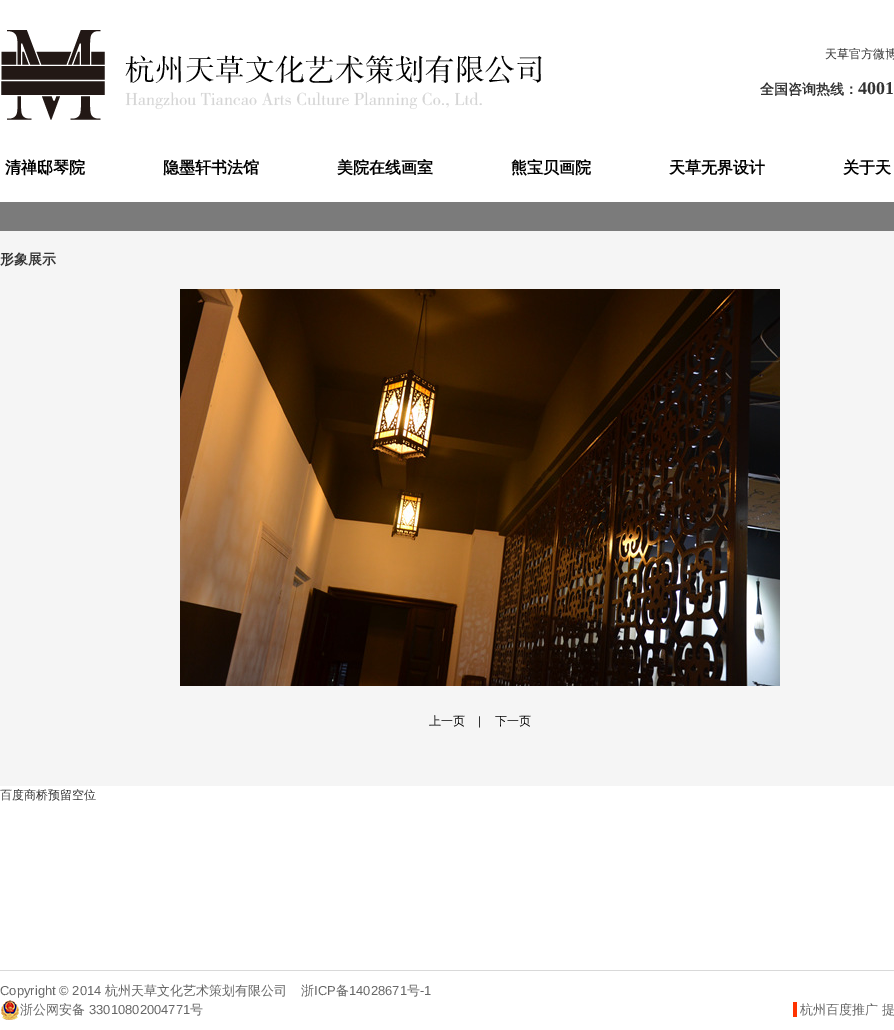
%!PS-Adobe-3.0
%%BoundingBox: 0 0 894 1030
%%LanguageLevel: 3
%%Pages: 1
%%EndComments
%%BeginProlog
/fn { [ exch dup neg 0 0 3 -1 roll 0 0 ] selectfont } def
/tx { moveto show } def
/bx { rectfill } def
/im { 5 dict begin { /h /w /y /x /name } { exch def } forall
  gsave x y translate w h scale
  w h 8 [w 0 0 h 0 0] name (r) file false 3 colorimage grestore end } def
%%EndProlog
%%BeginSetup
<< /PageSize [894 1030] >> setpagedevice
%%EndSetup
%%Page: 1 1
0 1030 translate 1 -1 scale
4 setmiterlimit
1 setgray
0 0 894 1030 bx
(image0.raw) 1 30 541 90 im
/WenQuanYiZenHei-Medium 12 fn
0.2 setgray
(天草官方微博) 825 58 tx
/WenQuanYiZenHei-Bold 14 fn
(全国咨询热线：) 760 94 tx
/LiberationSerif-Bold 18 fn
(4001) 858 94 tx
/WenQuanYiZenHei-Bold 16 fn
0 setgray
(清禅邸琴院) 5 173 tx
(隐墨轩书法馆) 163 173 tx
(美院在线画室) 337 173 tx
(熊宝贝画院) 511 173 tx
(天草无界设计) 669 173 tx
(关于天) 843 173 tx
0.961 setgray
0 231 894 555 bx
0.482 setgray
0 202 894 29 bx
/WenQuanYiZenHei-Bold 14 fn
0.2 setgray
(形象展示) 0 264 tx
(image1.raw) 180 289 600 397 im
/WenQuanYiZenHei-Medium 12 fn
0 setgray
(上一页) 429 725 tx
/LiberationSans-Regular 12 fn
0.2 setgray
(|) 478 725 tx
/WenQuanYiZenHei-Medium 12 fn
0 setgray
(下一页) 495 725 tx
0.2 setgray
(百度商桥预留空位) 0 799 tx
0.851 setgray
0 970 894 1 bx
/LiberationSans-Regular 13 fn
0.4 setgray
(Copyright © 2014) 0 995 tx
/WenQuanYiZenHei-Medium 13 fn
(杭州天草文化艺术策划有限公司) 105 995 tx
(浙) 301 995 tx
/LiberationSans-Regular 13 fn
(ICP) 314 995 tx
/WenQuanYiZenHei-Medium 13 fn
(备) 336 995 tx
/LiberationSans-Regular 13 fn
(14028671) 349 995 tx
/WenQuanYiZenHei-Medium 13 fn
(号) 407 995 tx
/LiberationSans-Regular 13 fn
(-1) 420 995 tx
(image2.raw) 1 1000 18 20 im
/WenQuanYiZenHei-Medium 13 fn
(浙公网安备) 20 1014 tx
/LiberationSans-Regular 13 fn
(33010802004771) 89 1014 tx
/WenQuanYiZenHei-Medium 13 fn
(号) 190 1014 tx
(杭州百度推广 提) 800 1014 tx
1 0.2 0 setrgbcolor
793 1002 4 15 bx
showpage
%%EOF
